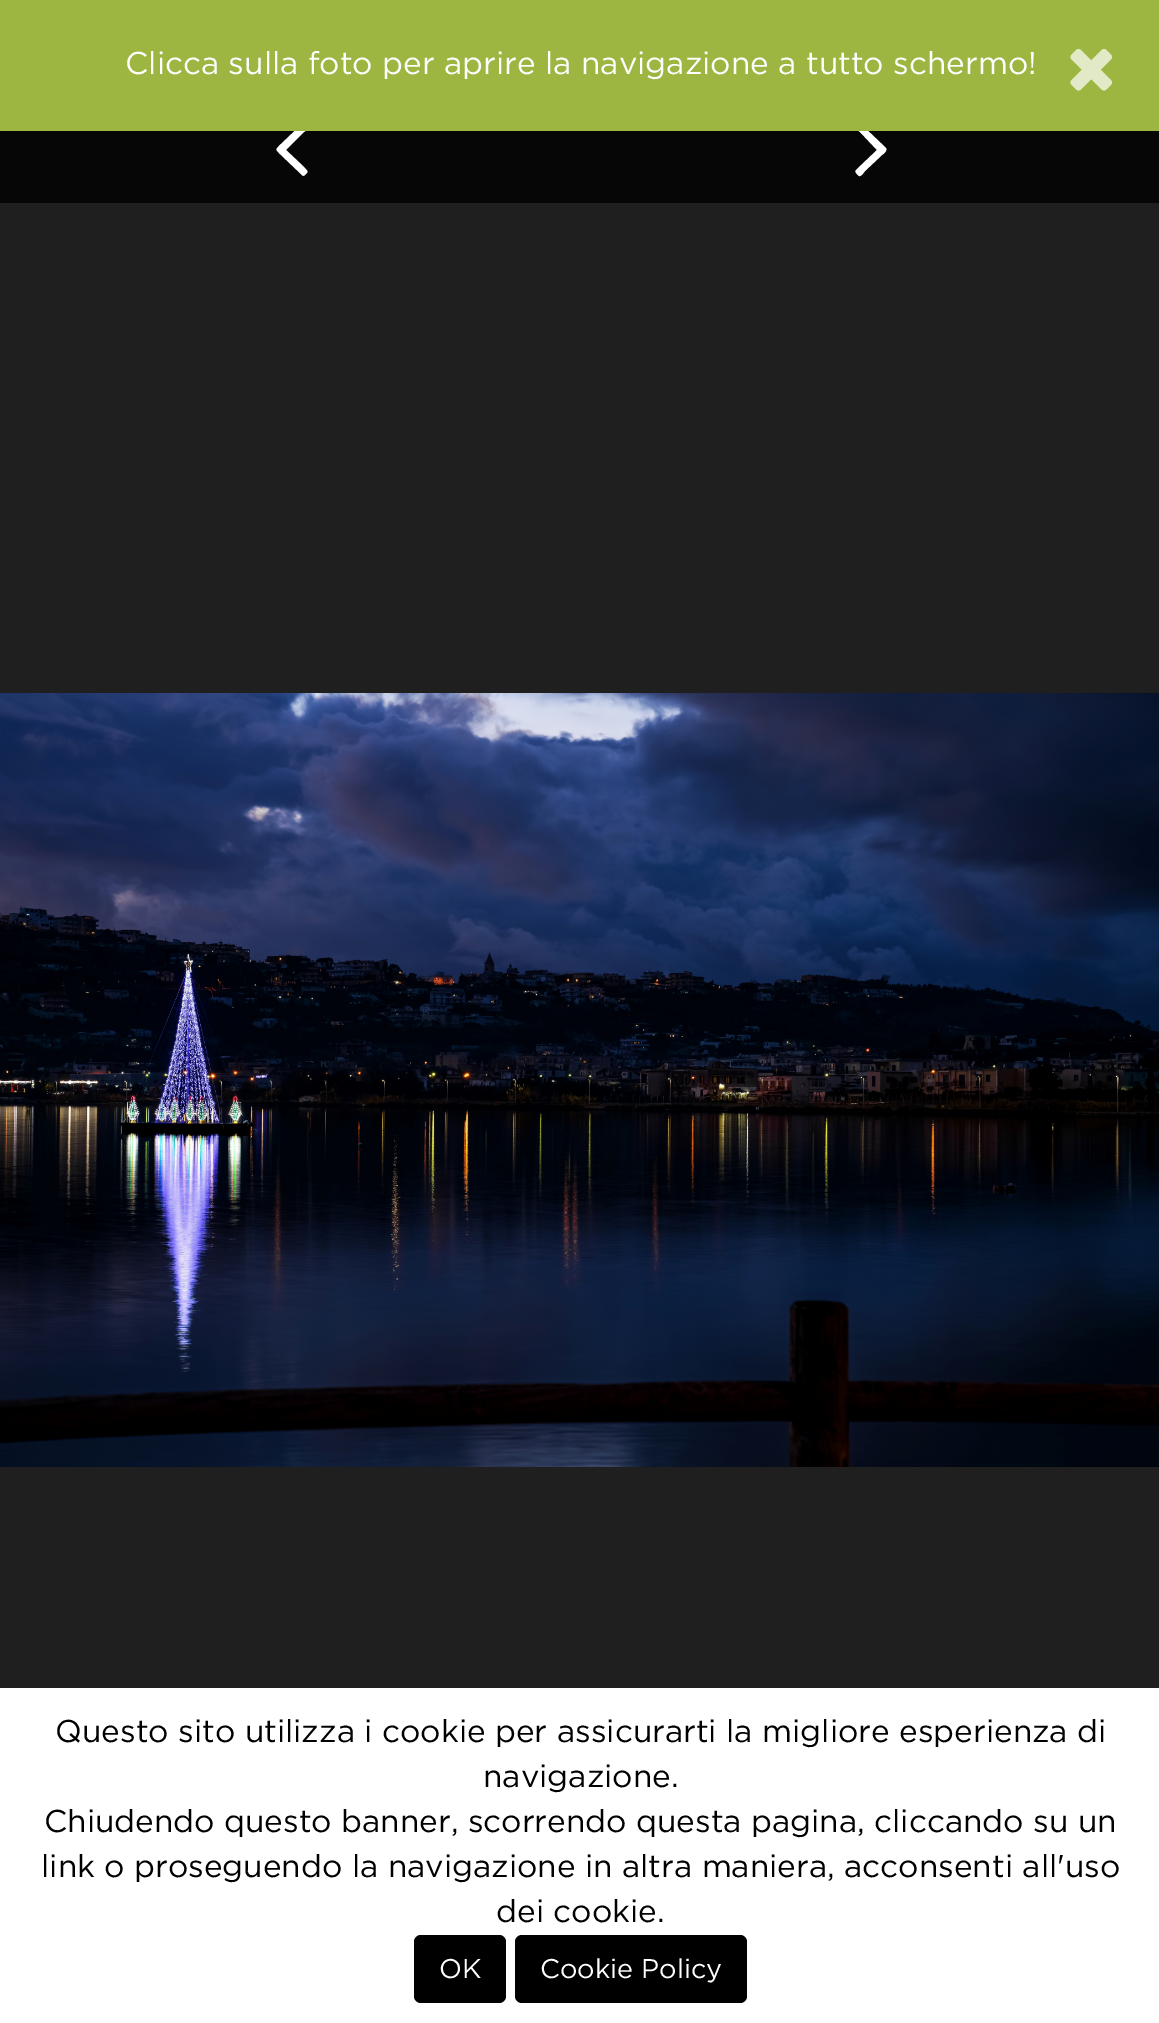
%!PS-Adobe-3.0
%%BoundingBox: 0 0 1159 2023
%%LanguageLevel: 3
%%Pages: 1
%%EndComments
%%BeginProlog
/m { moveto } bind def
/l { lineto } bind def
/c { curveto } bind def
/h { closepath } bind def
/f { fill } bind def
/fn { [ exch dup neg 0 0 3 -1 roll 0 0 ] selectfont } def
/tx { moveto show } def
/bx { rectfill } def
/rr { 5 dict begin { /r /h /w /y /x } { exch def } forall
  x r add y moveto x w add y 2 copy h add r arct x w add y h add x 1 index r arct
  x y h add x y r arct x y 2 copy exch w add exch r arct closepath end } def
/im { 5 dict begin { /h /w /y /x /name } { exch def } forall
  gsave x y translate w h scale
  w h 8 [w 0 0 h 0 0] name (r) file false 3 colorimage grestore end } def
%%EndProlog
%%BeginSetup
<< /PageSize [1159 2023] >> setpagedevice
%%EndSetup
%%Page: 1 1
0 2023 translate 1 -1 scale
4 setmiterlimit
0.122 setgray
0 0 1159 2023 bx
0.024 setgray
0 131 1159 72 bx
1 setgray
307 126 m 309 129 304 132 304 132 c 286 150 l 304 167 l 307 171 309 171 306 174 c 305 175 303 177 302 175 c 281 155 l 275 149 275 150 281 144 c 302 124 l 304 122 306 126 307 126 c h f
886 148 m 888 151 882 155 882 155 c 865 171 l 865 171 861 177 859 176 c 858 175 854 172 856 170 c 877 150 l 860 132 l 856 129 854 129 858 125 c 861 122 861 124 865 128 c h f
0.612 0.714 0.255 setrgbcolor
0 0 1159 131 bx
/Gotham-Regular 31.5 fn
1 setgray
(Clicca sulla foto per aprire la navigazione a tutto schermo!) 125 74 tx
(image0.raw) 1070 48 43 43 im
(image1.raw) 0 693 1159 774 im
0 1688 1159 335 bx
0 setgray
(Questo sito utilizza i cookie per assicurarti la migliore esperienza di) 55 1742 tx
(navigazione.) 483 1787 tx
(Chiudendo questo banner, scorrendo questa pagina, cliccando su un) 44 1832 tx
(link o proseguendo la navigazione in altra maniera, acconsenti all'uso) 41 1877 tx
(dei cookie.) 496 1922 tx
414 1935 92 68 7 rr f
/Gotham-Regular 27 fn
1 setgray
(OK) 439 1978 tx
0 setgray
515 1935 232 68 7 rr f
1 setgray
(Cookie Policy) 540 1978 tx
showpage
%%EOF
